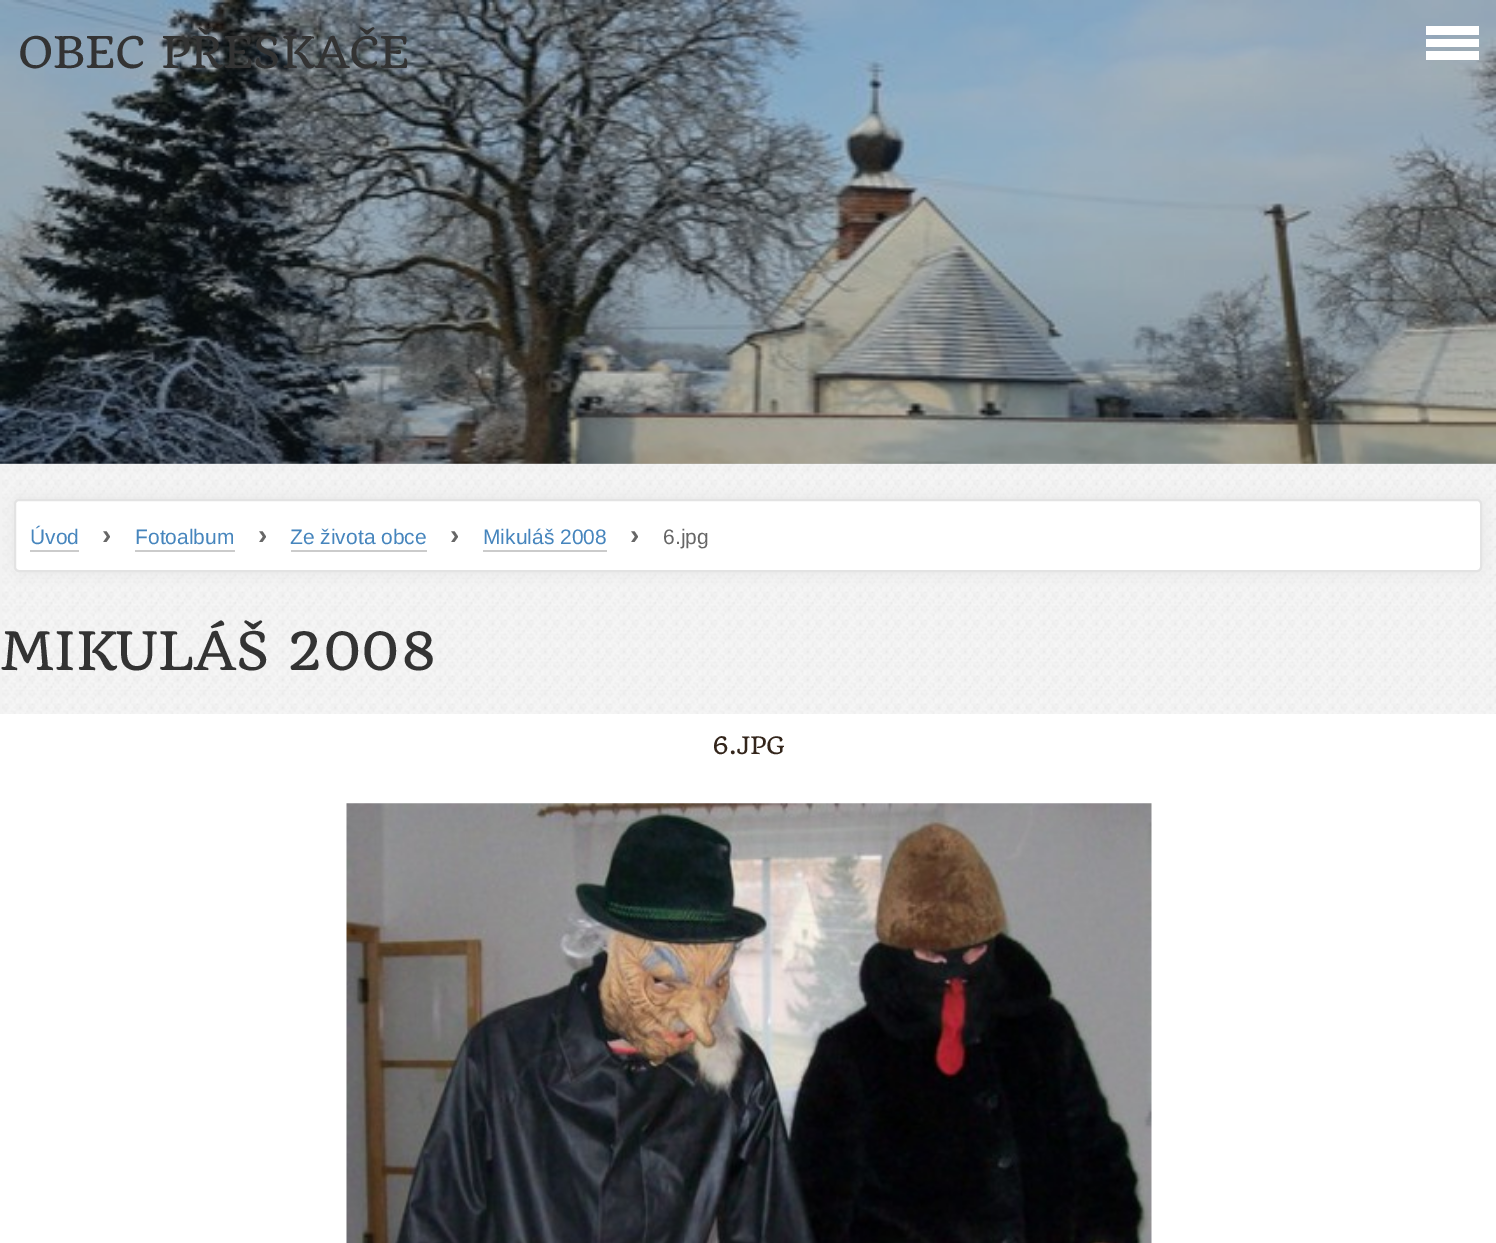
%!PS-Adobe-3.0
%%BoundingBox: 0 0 1496 1243
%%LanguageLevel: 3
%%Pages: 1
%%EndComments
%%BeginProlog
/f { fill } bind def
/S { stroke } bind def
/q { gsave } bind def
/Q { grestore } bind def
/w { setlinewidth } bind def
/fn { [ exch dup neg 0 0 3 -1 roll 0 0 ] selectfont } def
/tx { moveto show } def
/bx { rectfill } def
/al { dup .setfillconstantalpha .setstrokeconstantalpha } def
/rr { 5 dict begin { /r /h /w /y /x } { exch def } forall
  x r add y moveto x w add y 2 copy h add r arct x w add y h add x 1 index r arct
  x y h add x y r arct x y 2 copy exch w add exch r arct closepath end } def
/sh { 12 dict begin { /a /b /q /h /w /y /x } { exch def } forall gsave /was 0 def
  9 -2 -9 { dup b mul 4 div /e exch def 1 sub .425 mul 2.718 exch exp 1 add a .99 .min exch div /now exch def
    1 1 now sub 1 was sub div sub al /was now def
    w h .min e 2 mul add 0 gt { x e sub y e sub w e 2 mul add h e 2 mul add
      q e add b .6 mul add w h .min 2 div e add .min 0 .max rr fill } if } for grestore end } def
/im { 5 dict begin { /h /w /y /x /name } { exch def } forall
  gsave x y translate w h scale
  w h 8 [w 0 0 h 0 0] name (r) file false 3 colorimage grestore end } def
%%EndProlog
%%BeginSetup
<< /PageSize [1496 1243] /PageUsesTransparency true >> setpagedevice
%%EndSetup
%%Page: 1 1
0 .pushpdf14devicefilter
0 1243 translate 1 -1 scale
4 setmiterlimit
0.949 setgray
0 0 1496 1243 bx
(image0.raw) 2 463 1494 251 im
(image1.raw) 0 0 1496 464 im
0.2 al
0.122 0.216 0.271 setrgbcolor
0 0 1496 464 bx
/Quando-Regular 49 fn
1 al
0.2 setgray
(OBEC PŘESKAČE) 18 68 tx
0.902 setgray
14 499 1468 73 5 9 1 sh
1 setgray
15 500 1466 71 4 rr q f Q
0.89 setgray
2 w
S
/LiberationSans-Regular 21 fn
0.275 0.522 0.741 setrgbcolor
(Úvod) 30 544 tx
0.796 setgray
30 550 49 2 bx
/LiberationSans-Bold 28 fn
0.4 setgray
(›) 102 544 tx
/LiberationSans-Regular 21 fn
0.275 0.522 0.741 setrgbcolor
(Fotoalbum) 135 544 tx
0.796 setgray
135 550 100 2 bx
/LiberationSans-Bold 28 fn
0.4 setgray
(›) 258 544 tx
/LiberationSans-Regular 21 fn
0.275 0.522 0.741 setrgbcolor
(Ze života obce) 290 544 tx
0.796 setgray
291 550 136 2 bx
/LiberationSans-Bold 28 fn
0.4 setgray
(›) 450 544 tx
/LiberationSans-Regular 21 fn
0.275 0.522 0.741 setrgbcolor
(Mikuláš 2008) 483 544 tx
0.796 setgray
483 550 124 2 bx
/LiberationSans-Bold 28 fn
0.4 setgray
(›) 630 544 tx
/LiberationSans-Regular 21 fn
(6.jpg) 663 544 tx
/Quando-Regular 59.5 fn
0.2 setgray
(MIKULÁŠ 2008) 0 670 tx
1 setgray
0 714 1496 529 bx
/Quando-Regular 27 fn
0.2 0.145 0.106 setrgbcolor
(6.JPG) 712 754 tx
(image2.raw) 346 803 806 440 im
1 setgray
1426 26 53 9 bx
1426 39 53 8 bx
1426 51 53 9 bx
.poppdf14devicefilter showpage
%%EOF
